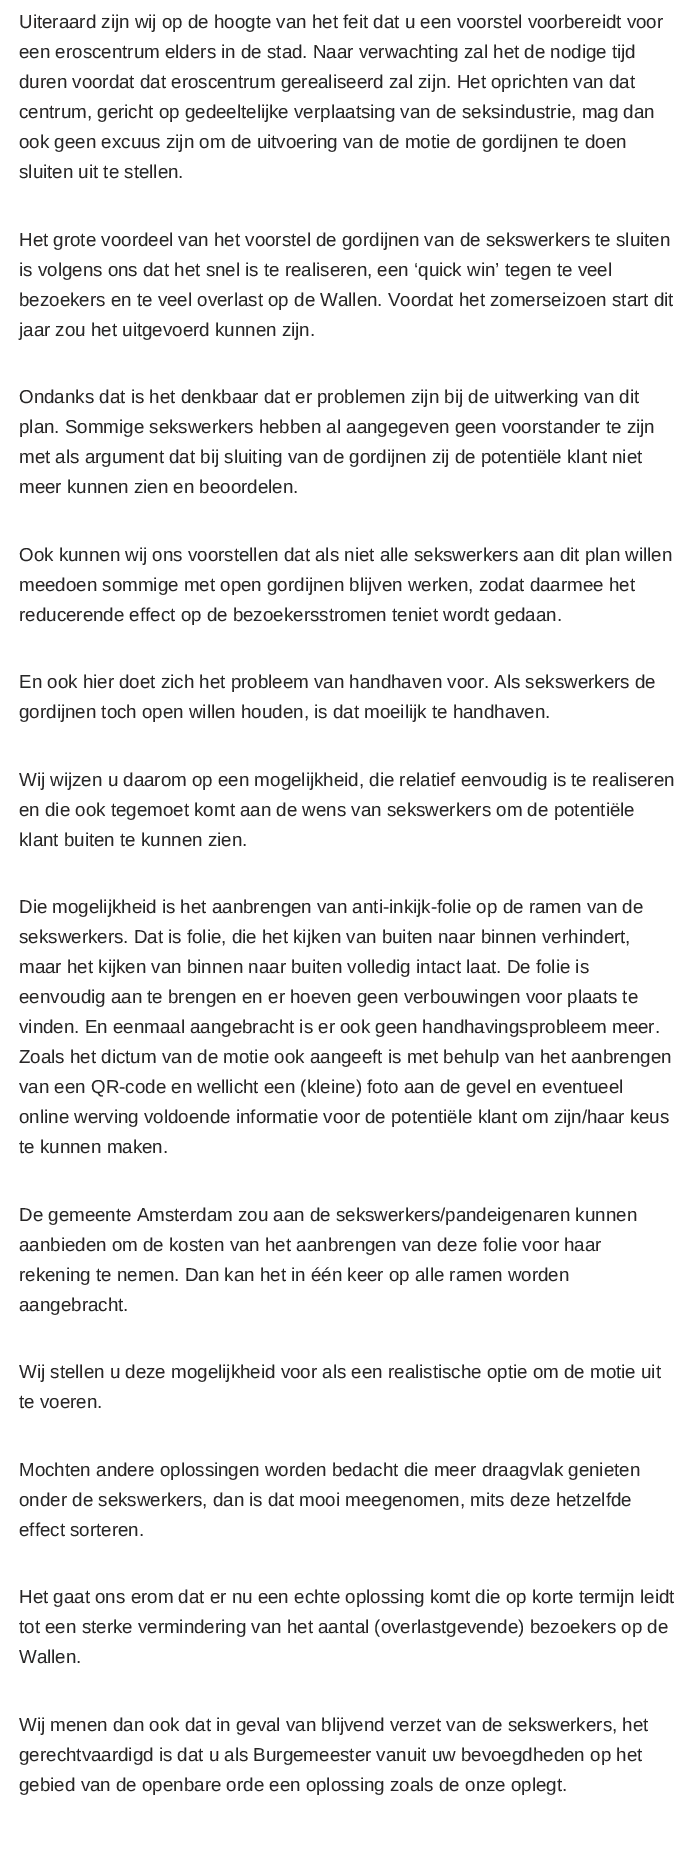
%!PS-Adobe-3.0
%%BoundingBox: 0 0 694 1851
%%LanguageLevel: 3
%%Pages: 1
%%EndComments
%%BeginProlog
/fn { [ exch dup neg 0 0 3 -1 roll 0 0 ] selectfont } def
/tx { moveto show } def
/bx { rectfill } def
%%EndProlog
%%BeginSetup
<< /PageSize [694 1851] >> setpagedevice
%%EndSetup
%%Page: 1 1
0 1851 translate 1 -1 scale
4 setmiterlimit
1 setgray
0 0 694 1851 bx
/LiberationSans-Regular 18.75 fn
0.153 0.149 0.149 setrgbcolor
(Uiteraard zijn wij op de hoogte van het feit dat u een voorstel voorbereidt voor) 19 28 tx
(een eroscentrum elders in de stad. Naar verwachting zal het de nodige tijd) 19 58 tx
(duren voordat dat eroscentrum gerealiseerd zal zijn. Het oprichten van dat) 19 88 tx
(centrum, gericht op gedeeltelijke verplaatsing van de seksindustrie, mag dan) 19 118 tx
(ook geen excuus zijn om de uitvoering van de motie de gordijnen te doen) 19 148 tx
(sluiten uit te stellen.) 19 178 tx
(Het grote voordeel van het voorstel de gordijnen van de sekswerkers te sluiten) 19 246 tx
(is volgens ons dat het snel is te realiseren, een ‘quick win’ tegen te veel) 19 276 tx
(bezoekers en te veel overlast op de Wallen. Voordat het zomerseizoen start dit) 19 306 tx
(jaar zou het uitgevoerd kunnen zijn.) 19 336 tx
(Ondanks dat is het denkbaar dat er problemen zijn bij de uitwerking van dit) 19 403 tx
(plan. Sommige sekswerkers hebben al aangegeven geen voorstander te zijn) 19 433 tx
(met als argument dat bij sluiting van de gordijnen zij de potentiële klant niet) 19 463 tx
(meer kunnen zien en beoordelen.) 19 493 tx
(Ook kunnen wij ons voorstellen dat als niet alle sekswerkers aan dit plan willen) 19 561 tx
(meedoen sommige met open gordijnen blijven werken, zodat daarmee het) 19 591 tx
(reducerende effect op de bezoekersstromen teniet wordt gedaan.) 19 621 tx
(En ook hier doet zich het probleem van handhaven voor. Als sekswerkers de) 19 688 tx
(gordijnen toch open willen houden, is dat moeilijk te handhaven.) 19 718 tx
(Wij wijzen u daarom op een mogelijkheid, die relatief eenvoudig is te realiseren) 19 786 tx
(en die ook tegemoet komt aan de wens van sekswerkers om de potentiële) 19 816 tx
(klant buiten te kunnen zien.) 19 846 tx
(Die mogelijkheid is het aanbrengen van anti-inkijk-folie op de ramen van de) 19 913 tx
(sekswerkers. Dat is folie, die het kijken van buiten naar binnen verhindert,) 19 943 tx
(maar het kijken van binnen naar buiten volledig intact laat. De folie is) 19 973 tx
(eenvoudig aan te brengen en er hoeven geen verbouwingen voor plaats te) 19 1003 tx
(vinden. En eenmaal aangebracht is er ook geen handhavingsprobleem meer.) 19 1033 tx
(Zoals het dictum van de motie ook aangeeft is met behulp van het aanbrengen) 19 1063 tx
(van een QR-code en wellicht een \(kleine\) foto aan de gevel en eventueel) 19 1093 tx
(online werving voldoende informatie voor de potentiële klant om zijn/haar keus) 19 1123 tx
(te kunnen maken.) 19 1153 tx
(De gemeente Amsterdam zou aan de sekswerkers/pandeigenaren kunnen) 19 1221 tx
(aanbieden om de kosten van het aanbrengen van deze folie voor haar) 19 1251 tx
(rekening te nemen. Dan kan het in één keer op alle ramen worden) 19 1281 tx
(aangebracht.) 19 1311 tx
(Wij stellen u deze mogelijkheid voor als een realistische optie om de motie uit) 19 1378 tx
(te voeren.) 19 1408 tx
(Mochten andere oplossingen worden bedacht die meer draagvlak genieten) 19 1476 tx
(onder de sekswerkers, dan is dat mooi meegenomen, mits deze hetzelfde) 19 1506 tx
(effect sorteren.) 19 1536 tx
(Het gaat ons erom dat er nu een echte oplossing komt die op korte termijn leidt) 19 1603 tx
(tot een sterke vermindering van het aantal \(overlastgevende\) bezoekers op de) 19 1633 tx
(Wallen.) 19 1663 tx
(Wij menen dan ook dat in geval van blijvend verzet van de sekswerkers, het) 19 1731 tx
(gerechtvaardigd is dat u als Burgemeester vanuit uw bevoegdheden op het) 19 1761 tx
(gebied van de openbare orde een oplossing zoals de onze oplegt.) 19 1791 tx
showpage
%%EOF
